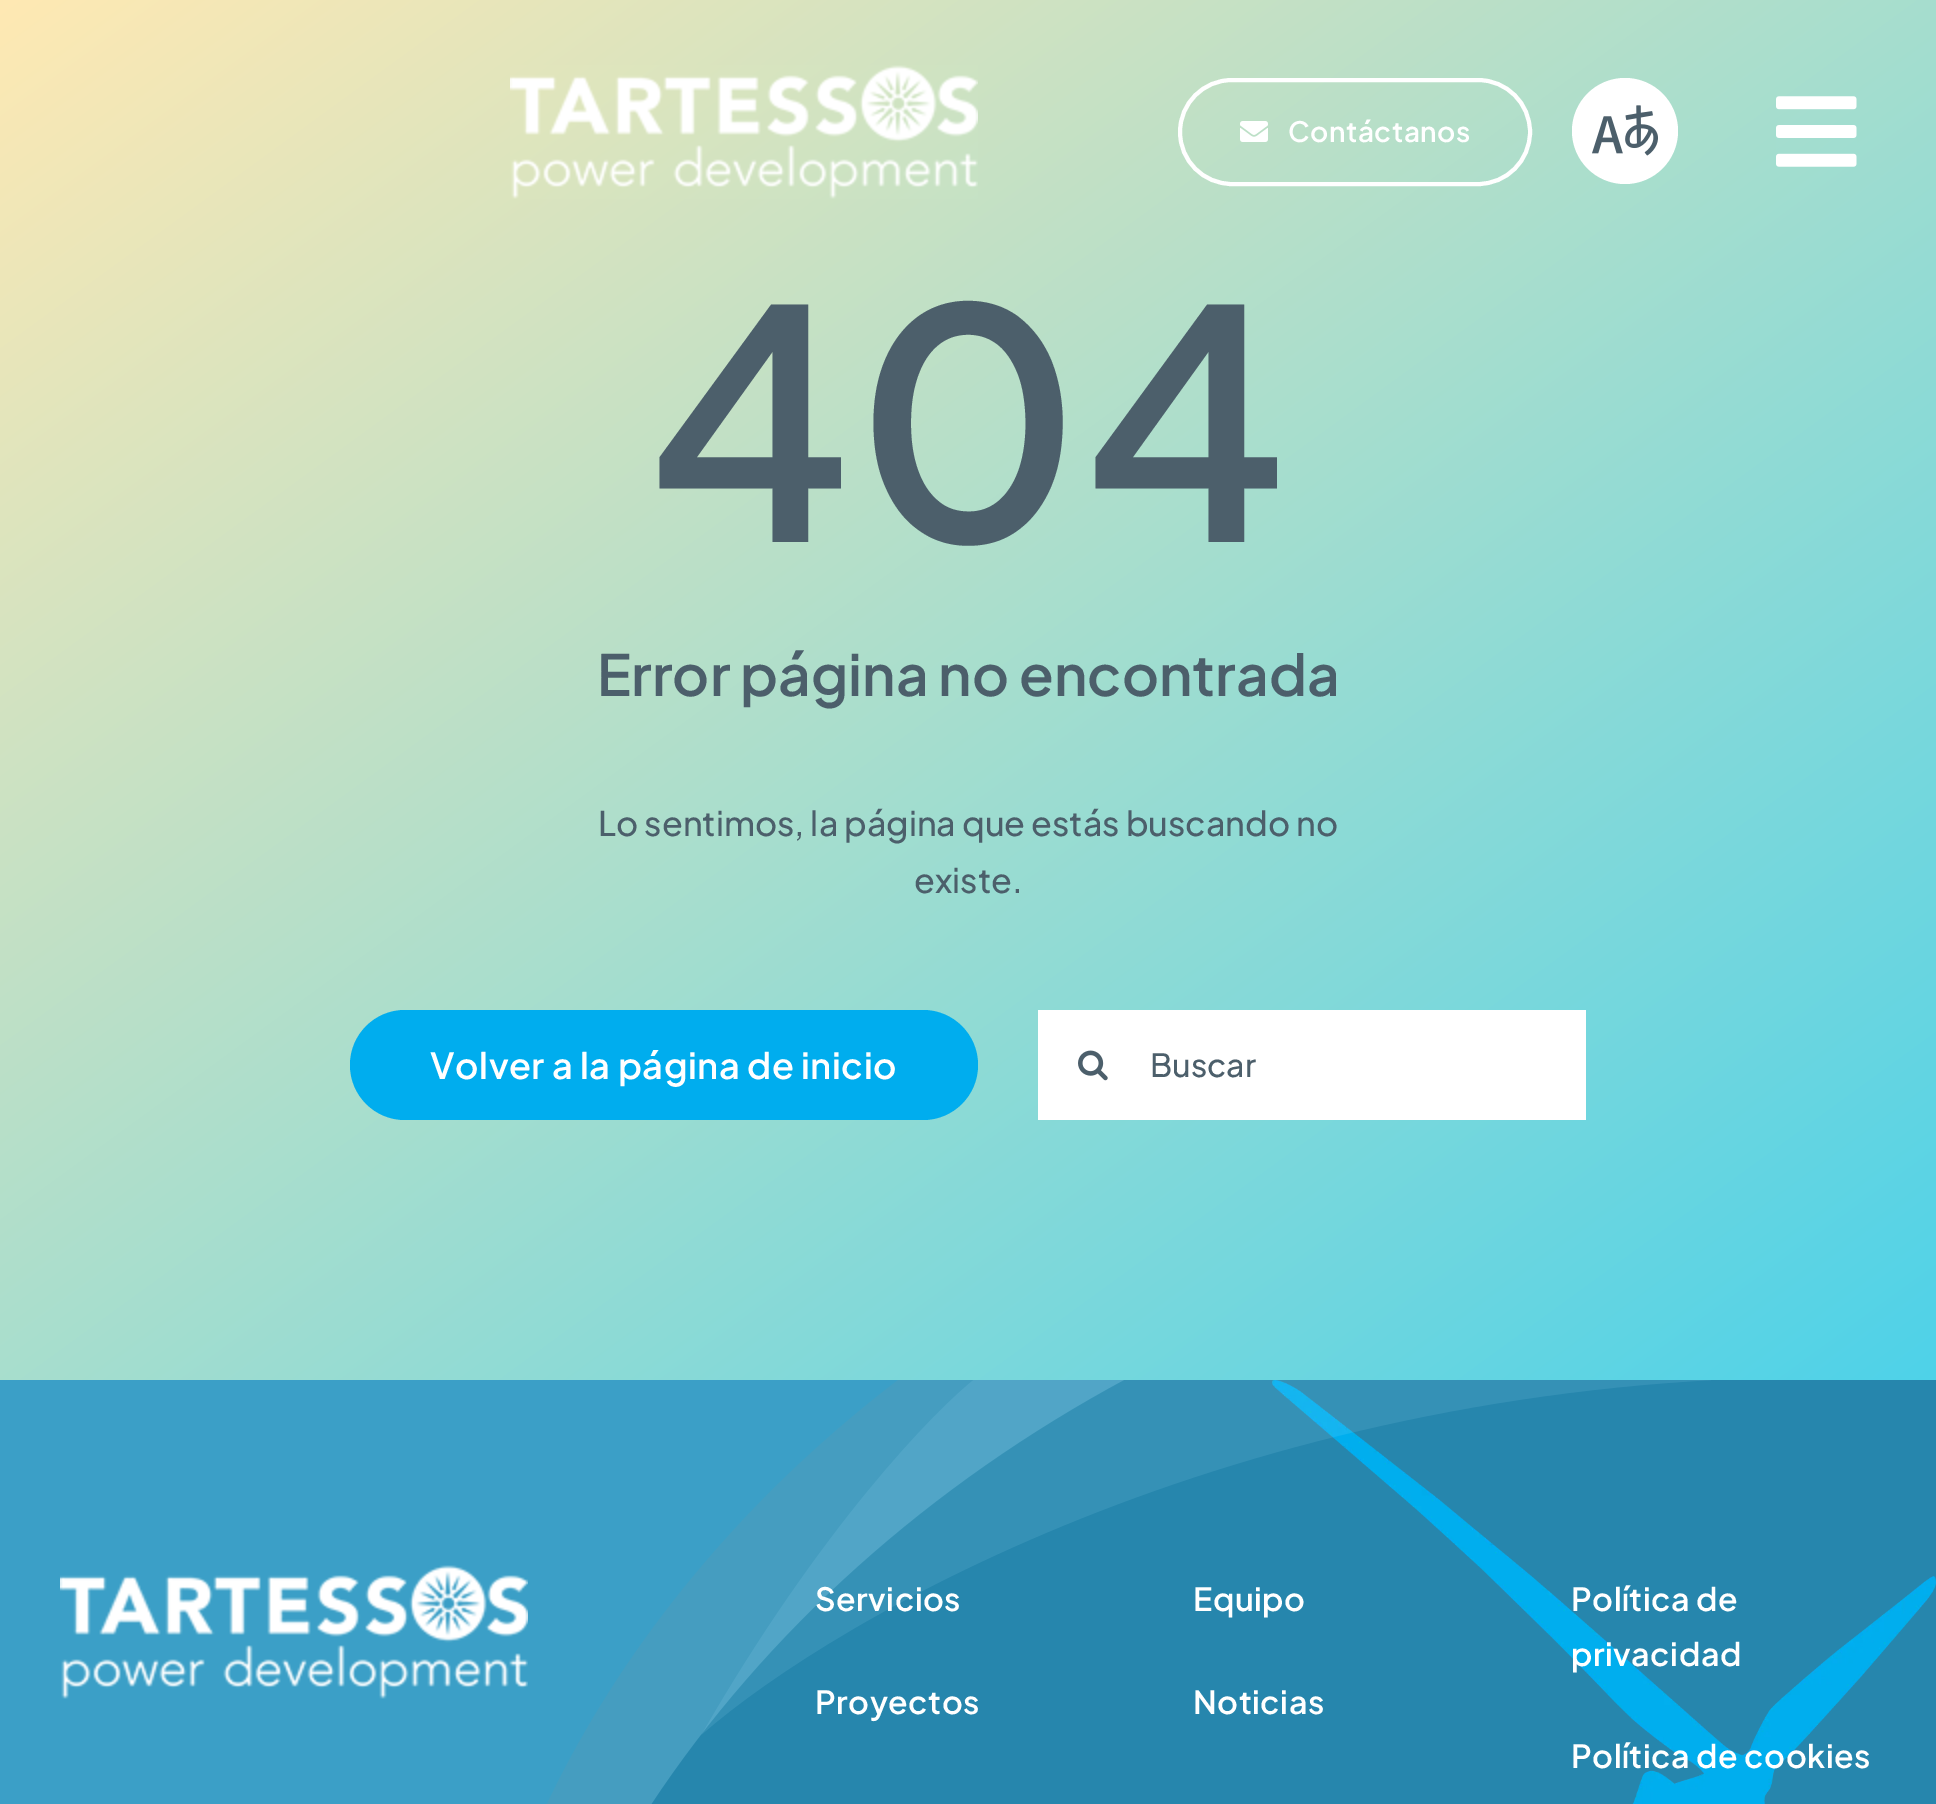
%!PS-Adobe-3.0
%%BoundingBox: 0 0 1936 1804
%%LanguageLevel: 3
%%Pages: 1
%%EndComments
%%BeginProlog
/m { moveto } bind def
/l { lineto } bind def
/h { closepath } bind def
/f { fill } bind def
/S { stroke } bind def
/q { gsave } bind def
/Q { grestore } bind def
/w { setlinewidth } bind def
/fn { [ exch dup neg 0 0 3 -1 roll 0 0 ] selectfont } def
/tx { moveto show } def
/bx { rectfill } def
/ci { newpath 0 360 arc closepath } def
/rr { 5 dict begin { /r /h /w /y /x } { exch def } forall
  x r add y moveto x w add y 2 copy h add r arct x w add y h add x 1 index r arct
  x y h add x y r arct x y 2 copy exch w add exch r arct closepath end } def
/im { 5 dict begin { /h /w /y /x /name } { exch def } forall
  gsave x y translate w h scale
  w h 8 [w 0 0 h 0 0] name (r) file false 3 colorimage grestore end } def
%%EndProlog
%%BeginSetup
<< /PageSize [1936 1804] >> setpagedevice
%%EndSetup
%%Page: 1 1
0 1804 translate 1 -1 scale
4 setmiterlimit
0.149 0.525 0.678 setrgbcolor
0 0 1936 1804 bx
q 0 0 m 1936 0 l 1936 1380 l 0 1380 l h clip newpath
<< /ShadingType 2 /ColorSpace /DeviceRGB /Coords [305 -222 1631 1602] /Extend [true true] /Function << /FunctionType 2 /Domain [0 1] /C0 [1 0.914 0.702] /C1 [0.306 0.824 0.914] /N 1 >> >> shfill Q
(image0.raw) 510 65 468 134 im
1 setgray
4 w
1180 80 350 104 52 rr S
(image1.raw) 1240 121 28 21 im
/PlusJakartaSans-SemiBold 28 fn
1288 142 m 0.5 0 (Contáctanos) ashow
1625 131 53 ci f
(image2.raw) 1592 105 66 51 im
(image3.raw) 1776 96 81 71 im
/PlusJakartaSans-SemiBold 320 fn
0.298 0.373 0.42 setrgbcolor
(404) 647 542 tx
/PlusJakartaSans-SemiBold 56.9 fn
(Error página no encontrada) 597 696 tx
/PlusJakartaSans-Medium 34 fn
(Lo sentimos, la página que estás buscando no) 598 836 tx
(existe.) 914 893 tx
0 0.678 0.933 setrgbcolor
350 1010 628 110 55 rr f
/PlusJakartaSans-SemiBold 36 fn
1 setgray
430 1079 m 0.55 0 (Volver a la página de inicio) ashow
1038 1010 548 110 bx
(image4.raw) 1078 1050 30 31 im
/PlusJakartaSans-Medium 32 fn
0.298 0.373 0.42 setrgbcolor
(Buscar) 1150 1077 tx
(image5.raw) 1272 1380 664 424 im
(image6.raw) 0 1380 1711 424 im
(image7.raw) 60 1565 468 134 im
/PlusJakartaSans-SemiBold 32 fn
1 setgray
815 1611 m 0.5 0 (Servicios) ashow
815 1714 m 0.5 0 (Proyectos) ashow
1193 1611 m 0.5 0 (Equipo) ashow
1193 1714 m 0.5 0 (Noticias) ashow
1571 1611 m 0.5 0 (Política de) ashow
1571 1666 m 0.5 0 (privacidad) ashow
1571 1768 m 0.5 0 (Política de cookies) ashow
showpage
%%EOF
